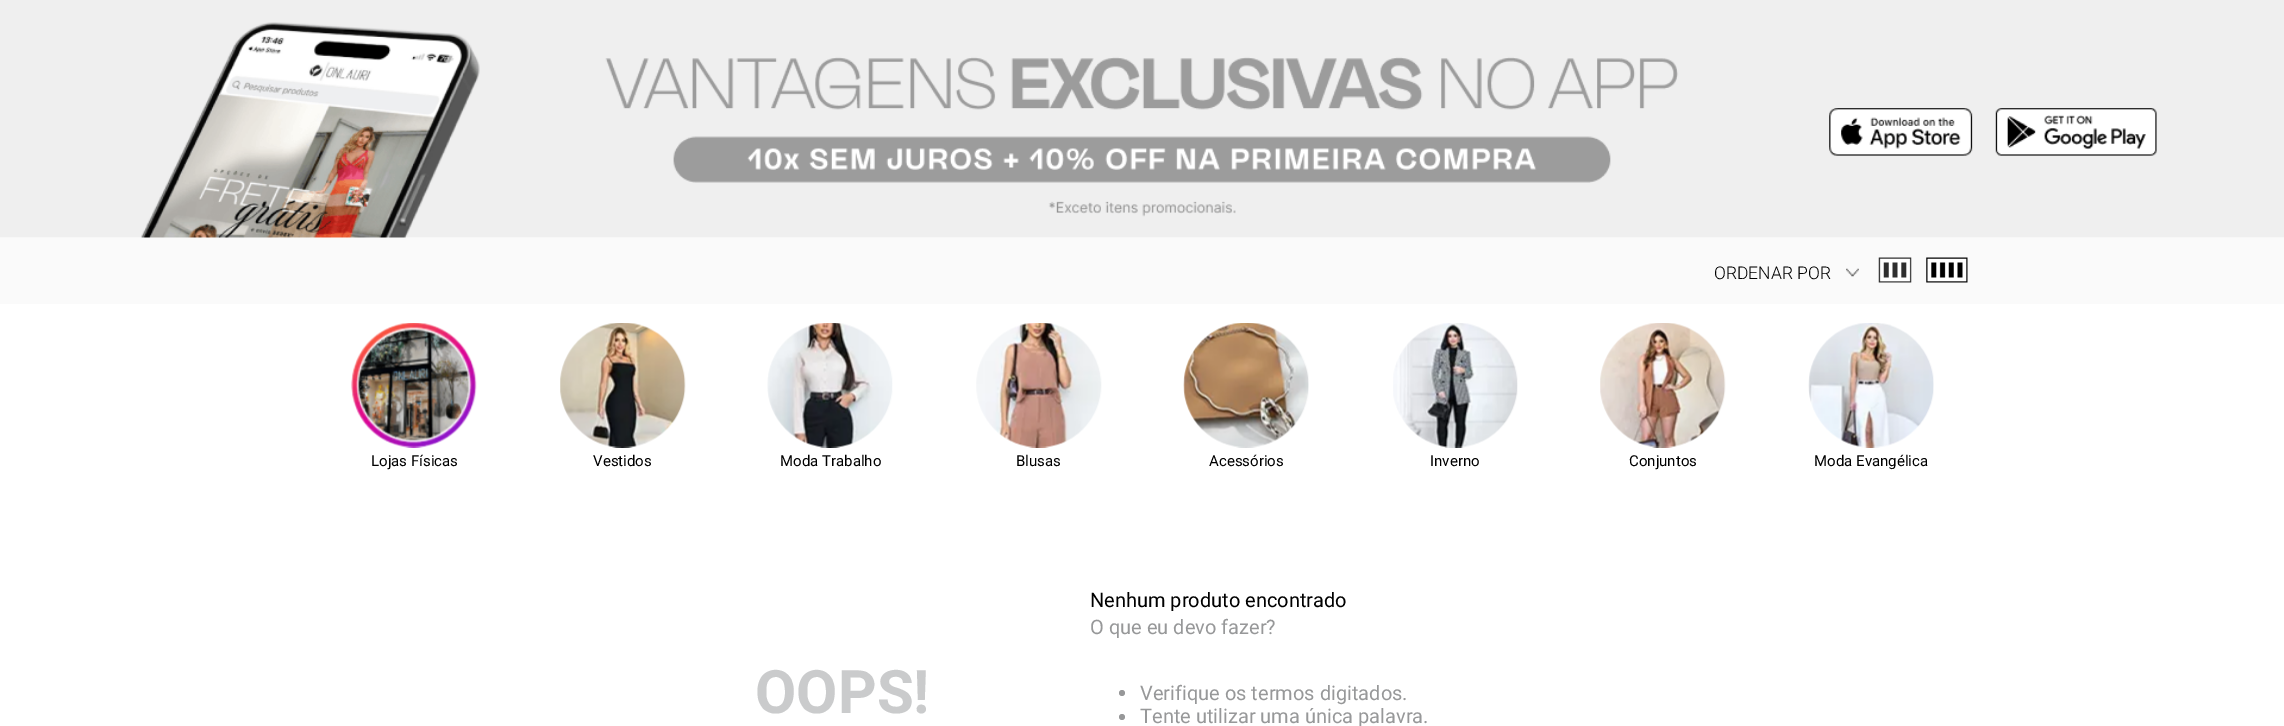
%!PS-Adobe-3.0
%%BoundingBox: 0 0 2284 726
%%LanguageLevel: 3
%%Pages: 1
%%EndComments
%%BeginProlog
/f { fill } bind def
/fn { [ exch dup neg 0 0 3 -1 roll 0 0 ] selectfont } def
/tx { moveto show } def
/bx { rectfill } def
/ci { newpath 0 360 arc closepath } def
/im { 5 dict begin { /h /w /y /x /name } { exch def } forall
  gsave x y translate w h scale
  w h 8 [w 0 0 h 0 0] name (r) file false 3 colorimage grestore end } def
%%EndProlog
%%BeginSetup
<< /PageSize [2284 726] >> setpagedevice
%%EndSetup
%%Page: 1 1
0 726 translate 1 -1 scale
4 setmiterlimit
1 setgray
0 0 2284 726 bx
(image0.raw) 0 0 2284 238 im
0.98 setgray
0 238 2284 66 bx
/Roboto-Light 17.5 fn
0 setgray
(ORDENAR POR) 1714 279 tx
(image1.raw) 1846 268 13 9 im
(image2.raw) 1878 257 34 26 im
(image3.raw) 1926 257 42 26 im
(image4.raw) 351 323 126 125 im
/Roboto-Regular 15 fn
(Lojas Físicas) 371 466 tx
(image5.raw) 560 323 126 125 im
(Vestidos) 593 466 tx
(image6.raw) 767 323 126 125 im
(Moda Trabalho) 780 466 tx
(image7.raw) 976 323 126 125 im
(Blusas) 1016 466 tx
(image8.raw) 1183 323 126 125 im
(Acessórios) 1209 466 tx
(image9.raw) 1393 323 125 125 im
(Inverno) 1430 466 tx
(image10.raw) 1600 323 126 125 im
(Conjuntos) 1629 466 tx
(image11.raw) 1808 323 126 125 im
(Moda Evangélica) 1814 466 tx
/Roboto-Bold 60 fn
0.792 0.796 0.8 setrgbcolor
(OOPS!) 755 713 tx
/Roboto-Regular 20 fn
0 setgray
(Nenhum produto encontrado) 1090 607 tx
0.592 0.596 0.6 setrgbcolor
(O que eu devo fazer?) 1090 634 tx
1122 693 3 ci f
(Verifique os termos digitados.) 1140 700 tx
1122 717 3 ci f
(Tente utilizar uma única palavra.) 1140 723 tx
showpage
%%EOF
